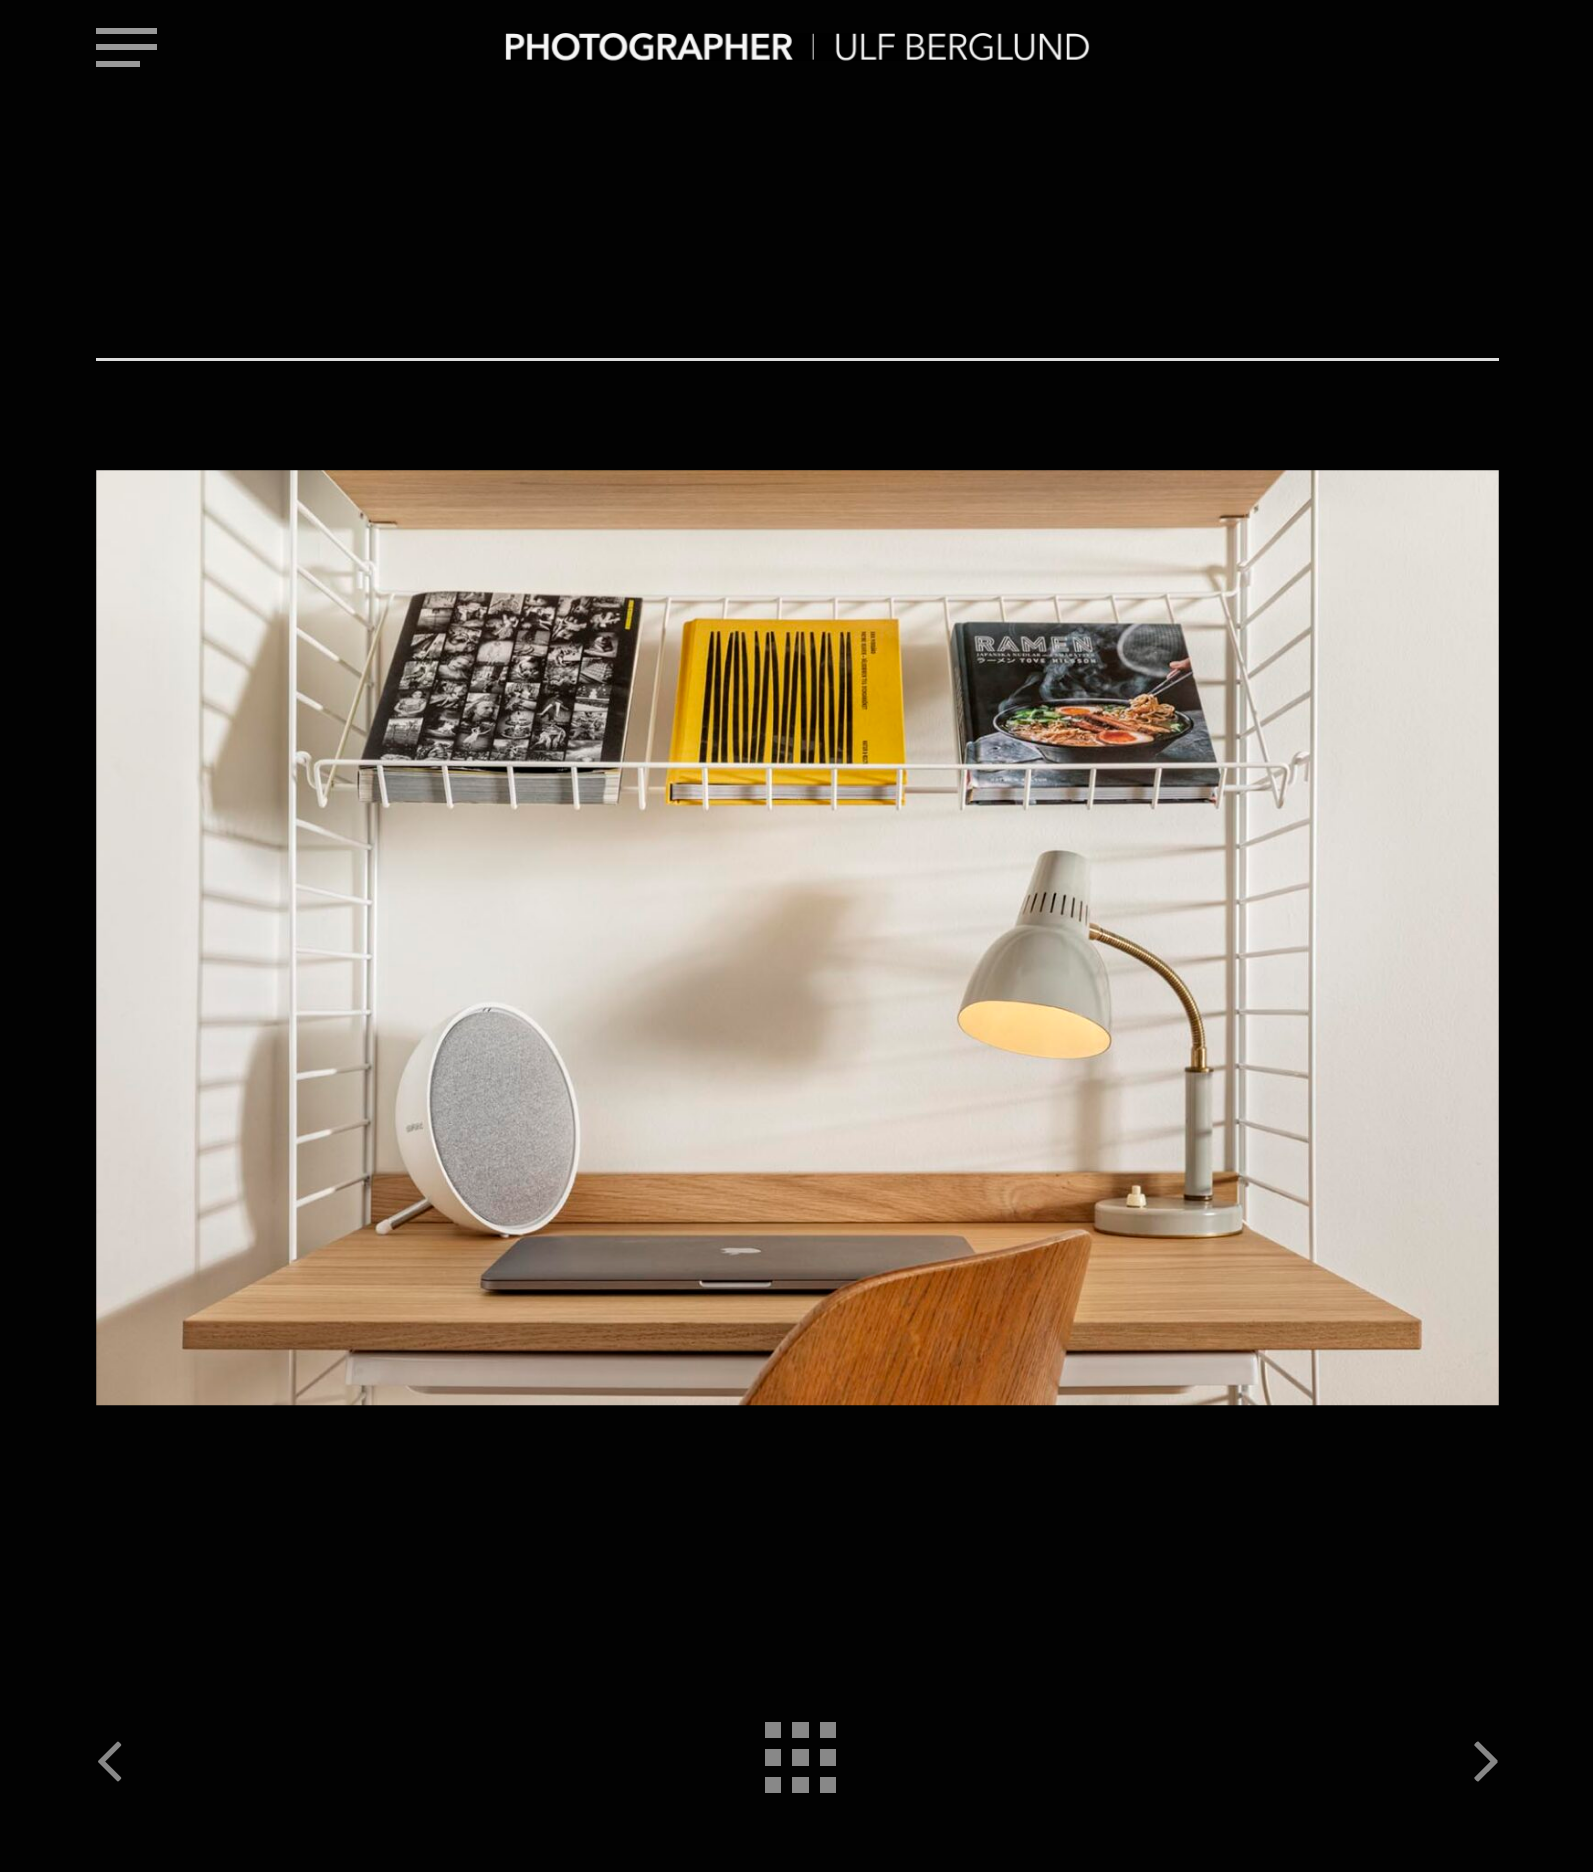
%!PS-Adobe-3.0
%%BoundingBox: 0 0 1593 1872
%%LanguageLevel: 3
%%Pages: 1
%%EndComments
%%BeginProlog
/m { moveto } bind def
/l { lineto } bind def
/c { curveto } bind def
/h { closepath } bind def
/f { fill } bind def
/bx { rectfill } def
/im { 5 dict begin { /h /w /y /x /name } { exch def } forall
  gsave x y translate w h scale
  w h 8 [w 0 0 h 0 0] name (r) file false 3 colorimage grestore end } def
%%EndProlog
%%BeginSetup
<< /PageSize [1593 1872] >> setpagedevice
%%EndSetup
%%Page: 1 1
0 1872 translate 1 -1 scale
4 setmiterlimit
0.008 setgray
0 0 1593 1872 bx
0.6 setgray
96 28 61 6 bx
96 61 44 6 bx
96 44 61 6 bx
(image0.raw) 505 33 585 28 im
0.867 setgray
96 358 1403 3 bx
(image1.raw) 96 470 1403 936 im
0.533 setgray
820 1777 16 16 bx
792 1777 17 16 bx
765 1722 16 16 bx
792 1722 17 16 bx
820 1722 16 16 bx
820 1749 16 17 bx
765 1777 16 16 bx
765 1749 16 17 bx
792 1749 17 17 bx
(image2.raw) 98 1741 24 41 im
1497.5 1761.5 m 1497.5 1762.5 l 1478 1781.5 l 1477 1781 l 1476.5 1780.5 1474 1779 1474.5 1777.5 c 1490.5 1761.5 l 1474.5 1745.5 l 1474 1744 1476.5 1742.5 1477 1742 c 1478 1741.5 l 1497.5 1760.5 l h f
showpage
%%EOF
